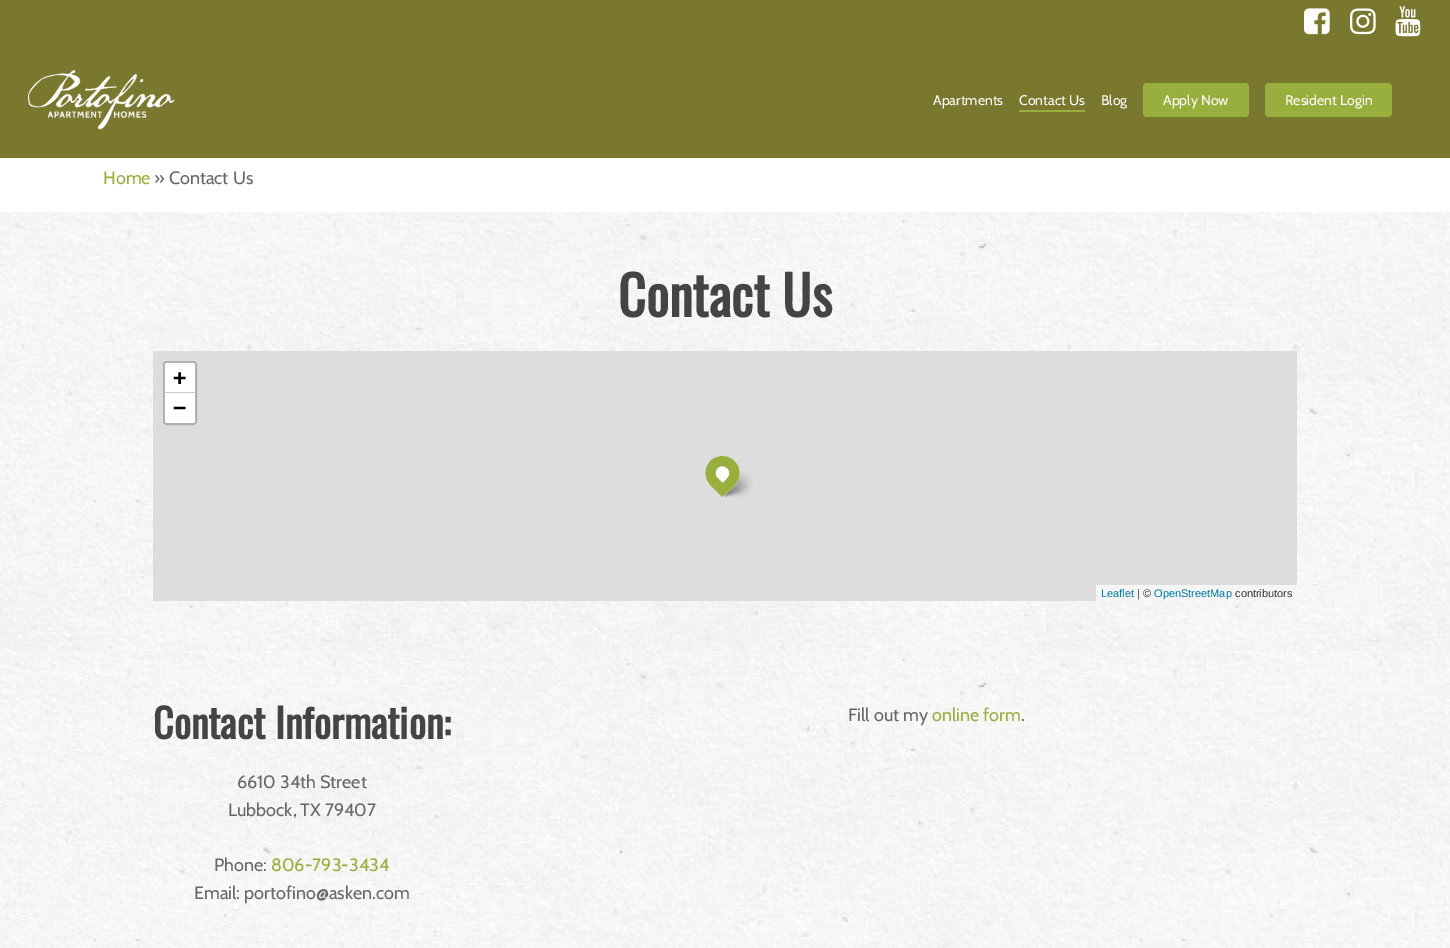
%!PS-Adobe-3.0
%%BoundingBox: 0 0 1450 948
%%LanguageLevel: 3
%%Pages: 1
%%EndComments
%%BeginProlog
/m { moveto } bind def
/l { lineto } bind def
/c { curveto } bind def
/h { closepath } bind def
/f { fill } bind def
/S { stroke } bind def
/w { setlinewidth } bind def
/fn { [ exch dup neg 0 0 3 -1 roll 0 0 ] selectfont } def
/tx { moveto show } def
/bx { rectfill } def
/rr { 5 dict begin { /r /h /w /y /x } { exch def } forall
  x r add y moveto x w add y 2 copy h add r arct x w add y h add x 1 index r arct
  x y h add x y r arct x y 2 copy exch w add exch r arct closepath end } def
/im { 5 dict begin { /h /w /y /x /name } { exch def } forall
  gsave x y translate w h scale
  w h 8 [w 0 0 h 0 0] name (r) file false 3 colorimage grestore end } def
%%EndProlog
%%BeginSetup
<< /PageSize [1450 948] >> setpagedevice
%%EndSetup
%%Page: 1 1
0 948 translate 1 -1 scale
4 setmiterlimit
1 setgray
0 0 1450 948 bx
0.478 0.467 0.184 setrgbcolor
0 0 1450 158 bx
(image0.raw) 1304 8 26 27 im
(image1.raw) 1350 8 26 27 im
(image2.raw) 1395 6 26 31 im
(image3.raw) 28 70 147 60 im
/Cabin-Regular 14 fn
1 setgray
(Apartments) 933 105 tx
(Contact Us) 1019 105 tx
0.596 0.686 0.239 setrgbcolor
1019 110 66 2 bx
1 setgray
(Blog) 1101 105 tx
0.596 0.686 0.239 setrgbcolor
1143 83 106 34 4 rr f
1 setgray
(Apply Now) 1163 105 tx
0.596 0.686 0.239 setrgbcolor
1265 83 127 34 4 rr f
1 setgray
(Resident Login) 1285 105 tx
/Cabin-Regular 18 fn
0.596 0.686 0.239 setrgbcolor
(Home) 103 184 tx
0.404 setgray
(» Contact Us) 154 184 tx
(image4.raw) 0 212 1450 439 im
/Oswald-Bold 54 fn
0.267 setgray
(Contact Us) 618 317 tx
0.867 setgray
153 351 1144 250 bx
0.694 setgray
2 w
164 362 32 62 3 rr S
1 setgray
167 363 m 193 363 l 194 363 195 364 195 365 c 195 393 l 165 393 l 165 365 l 165 364 166 363 167 363 c h f
0.8 setgray
165 392 30 1 bx
/DejaVuSansMono-Bold 22 fn
0 setgray
(+) 173 385 tx
1 setgray
165 393 m 195 393 l 195 421 l 195 422 194 423 193 423 c 167 423 l 166 423 165 422 165 421 c h f
0 setgray
(−) 173 415 tx
0.961 setgray
1096 585 201 16 bx
/LiberationSans-Regular 11 fn
0 0.471 0.659 setrgbcolor
(Leaflet) 1101 597 tx
0.2 setgray
(| ©) 1137 597 tx
0 0.471 0.659 setrgbcolor
(OpenStreetMap) 1154 597 tx
0.2 setgray
(contributors) 1235 597 tx
(image5.raw) 722 471 31 27 im
1 setgray
711 461 m 723 448 745 463 738 480 c 736 486 727 492 723 497 c 711 485 l 704 479 704 468 711 461 c h f
0.596 0.686 0.239 setrgbcolor
10 w
714 464.5 m 723 455.5 738.5 465.5 733.5 477.5 c 732 482 726 487 722.5 490 c 714 481.5 l 709.5 477 709.5 469.5 714 464.5 c h S
(image6.raw) 0 651 1450 297 im
/Oswald-Bold 40 fn
0.267 setgray
(Contact Information:) 153 739 tx
/Cabin-Regular 18 fn
0.404 setgray
(6610 34th Street) 237 788 tx
(Lubbock, TX 79407) 228 816 tx
(Phone:) 214 871 tx
0.596 0.686 0.239 setrgbcolor
(806-793-3434) 271 871 tx
0.404 setgray
(Email: portofino@asken.com) 194 899 tx
(Fill out my) 848 721 tx
0.596 0.686 0.239 setrgbcolor
(online form) 932 721 tx
0.404 setgray
(.) 1021 721 tx
showpage
%%EOF
